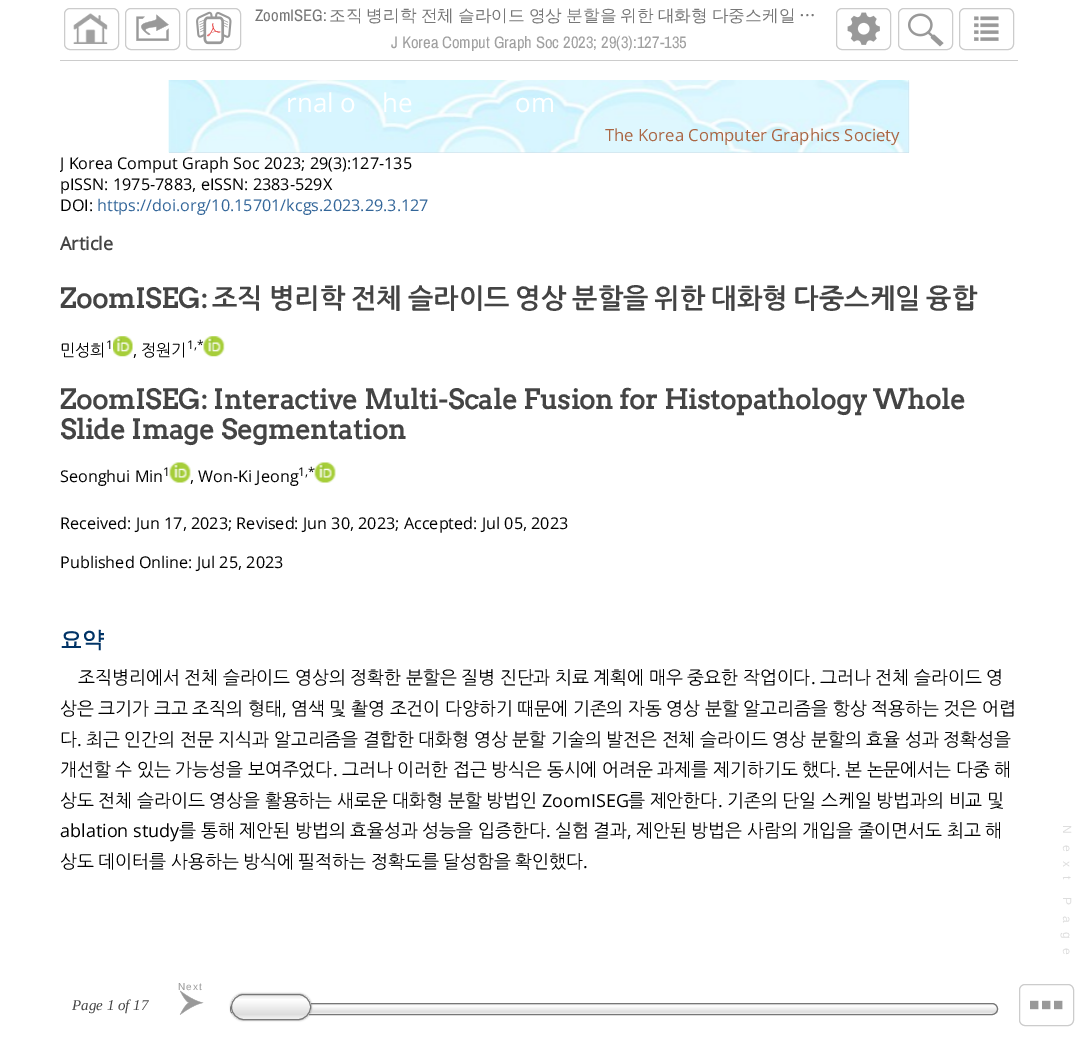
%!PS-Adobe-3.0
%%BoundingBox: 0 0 1077 1040
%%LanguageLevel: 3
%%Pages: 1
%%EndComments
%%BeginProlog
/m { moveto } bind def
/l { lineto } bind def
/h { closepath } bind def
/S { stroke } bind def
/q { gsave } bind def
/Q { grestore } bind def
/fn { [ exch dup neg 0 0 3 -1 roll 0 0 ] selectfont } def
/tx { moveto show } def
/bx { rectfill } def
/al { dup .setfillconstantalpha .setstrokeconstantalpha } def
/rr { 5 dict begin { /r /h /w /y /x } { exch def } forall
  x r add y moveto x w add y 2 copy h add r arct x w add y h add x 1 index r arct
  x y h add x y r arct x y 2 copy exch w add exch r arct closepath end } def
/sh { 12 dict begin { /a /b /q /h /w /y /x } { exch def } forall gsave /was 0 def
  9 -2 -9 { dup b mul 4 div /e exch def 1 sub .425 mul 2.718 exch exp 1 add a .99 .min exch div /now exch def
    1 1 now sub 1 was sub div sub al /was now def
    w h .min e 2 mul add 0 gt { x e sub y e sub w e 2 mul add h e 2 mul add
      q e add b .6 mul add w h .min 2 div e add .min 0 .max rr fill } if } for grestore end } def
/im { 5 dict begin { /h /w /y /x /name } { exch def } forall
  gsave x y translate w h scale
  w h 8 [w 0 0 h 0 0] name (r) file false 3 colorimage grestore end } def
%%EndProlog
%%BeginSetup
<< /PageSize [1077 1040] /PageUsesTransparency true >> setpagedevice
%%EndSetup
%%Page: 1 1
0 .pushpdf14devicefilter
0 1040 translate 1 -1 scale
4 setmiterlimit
1 setgray
0 0 1077 1040 bx
0.8 setgray
60 60 958 1 bx
64.5 8.5 54 41 5.5 rr S
(image0.raw) 73 13 35 31 im
125.5 8.5 54 41 5.5 rr S
(image1.raw) 136 14 33 27 im
186.5 8.5 54 41 5.5 rr S
(image2.raw) 196 11 36 34 im
/ArchivoNarrow-Regular 16.7 fn
0.467 setgray
(ZoomISEG:) 255 21 tx
/WenQuanYiZenHei-Medium 16.7 fn
329 21 m -1 0 32 (조직 병리학 전체 슬라이드 영상 분할을 위한 대화형 다중스케일 …) widthshow
/ArchivoNarrow-Regular 16.7 fn
0.627 setgray
(J Korea Comput Graph Soc 2023; 29\(3\):127-135) 391 48 tx
0.8 setgray
836.5 8.5 54 41 5.5 rr S
(image3.raw) 847 12 33 33 im
898.5 8.5 54 41 5.5 rr S
(image4.raw) 908 13 36 34 im
959.5 8.5 54 41 5.5 rr S
(image5.raw) 974 16 25 25 im
/LiberationSans-Regular 12 fn
0.867 setgray
q 1063 825 translate 90 rotate 0 0 m 7 0 (N) ashow Q
q 1063 845 translate 90 rotate 0 0 m 5 0 (e) ashow Q
q 1063 861 translate 90 rotate 0 0 m 5 0 (x) ashow Q
q 1063 876 translate 90 rotate 0 0 m 3 0 (t) ashow Q
q 1063 897 translate 90 rotate 0 0 m 6 0 (P) ashow Q
q 1063 916 translate 90 rotate 0 0 m 5 0 (a) ashow Q
q 1063 932 translate 90 rotate 0 0 m 5 0 (g) ashow Q
q 1063 948 translate 90 rotate 0 0 m 5 0 (e) ashow Q
/LiberationSans-Regular 10 fn
0.6 setgray
(N) 178 990 tx
(image6.raw) 179 990 25 25 im
(e) 186 990 tx
(x) 193 990 tx
(t) 199 990 tx
/LiberationSerif-Italic 15 fn
0.267 setgray
(Page 1 of 17) 72 1010 tx
q
230 1003 768 12 6 rr clip newpath
q 230 1004 m 998 1004 l 998 1014 l 230 1014 l h clip newpath
<< /ShadingType 2 /ColorSpace /DeviceRGB /Coords [614 1014 614 1004] /Extend [true true] /Function << /FunctionType 3 /Domain [0 1] /Functions [<< /FunctionType 2 /Domain [0 1] /C0 [0.933 0.933 0.933] /C1 [0.933 0.933 0.933] /N 1 >> << /FunctionType 2 /Domain [0 1] /C0 [0.933 0.933 0.933] /C1 [0.867 0.867 0.867] /N 1 >> << /FunctionType 2 /Domain [0 1] /C0 [0.867 0.867 0.867] /C1 [1 1 1] /N 1 >> << /FunctionType 2 /Domain [0 1] /C0 [1 1 1] /C1 [0.933 0.933 0.933] /N 1 >> << /FunctionType 2 /Domain [0 1] /C0 [0.933 0.933 0.933] /C1 [0.933 0.933 0.933] /N 1 >>] /Bounds [0.05 0.19 0.81 0.95] /Encode [0 1 0 1 0 1 0 1 0 1] >> >> shfill Q
Q
0.467 setgray
230.5 1003.5 767 11 5.5 rr S
231 994 80 26 13 1 1 sh
q
231 994 80 26 13 rr clip newpath
q 231 995 m 311 995 l 311 1019 l 231 1019 l h clip newpath
<< /ShadingType 2 /ColorSpace /DeviceRGB /Coords [271 1019 271 995] /Extend [true true] /Function << /FunctionType 3 /Domain [0 1] /Functions [<< /FunctionType 2 /Domain [0 1] /C0 [0.933 0.933 0.933] /C1 [0.933 0.933 0.933] /N 1 >> << /FunctionType 2 /Domain [0 1] /C0 [0.933 0.933 0.933] /C1 [0.867 0.867 0.867] /N 1 >> << /FunctionType 2 /Domain [0 1] /C0 [0.867 0.867 0.867] /C1 [1 1 1] /N 1 >> << /FunctionType 2 /Domain [0 1] /C0 [1 1 1] /C1 [0.933 0.933 0.933] /N 1 >> << /FunctionType 2 /Domain [0 1] /C0 [0.933 0.933 0.933] /C1 [0.933 0.933 0.933] /N 1 >>] /Bounds [0.05 0.19 0.81 0.95] /Encode [0 1 0 1 0 1 0 1 0 1] >> >> shfill Q
Q
231.5 994.5 79 25 12.5 rr S
0.8 setgray
1019.5 984.5 54 41 5.5 rr S
(image7.raw) 1030 1000 33 10 im
0.8 0.859 0.898 setrgbcolor
169 80 740 73 bx
(image8.raw) 168 80 742 73 im
/OpenSans-Regular 26 fn
1 setgray
(rnal o) 286 112 tx
(he) 382 112 tx
(om) 515 112 tx
/OpenSans-Regular 16.7 fn
0.667 0.4 0.267 setrgbcolor
(The Korea Computer Graphics Society) 605 141 tx
q
60 80 958 880 rectclip
/OpenSans-Regular 16.2 fn
0 setgray
(J Korea Comput Graph Soc) 60 169 tx
Q
/OpenSans-Regular 16.2 fn
0 setgray
(2023; 29\(3\):127-135) 264 169 tx
(pISSN: 1975-7883, eISSN: 2383-529X) 60 190 tx
(DOI:) 60 211 tx
0.2 0.4 0.6 setrgbcolor
(https://doi.org/10.15701/kcgs.2023.29.3.127) 97 211 tx
/OpenSans-Bold 18 fn
0.267 setgray
(Article) 60 250 tx
/Arvo-Bold 27 fn
(ZoomISEG:) 60 308 tx
/NanumGothic-Bold 27 fn
212 308 m -1.5 0 32 (조직 병리학 전체 슬라이드 영상 분할을 위한 대화형 다중스케일 융합) widthshow
/NanumGothic-Regular 16.2 fn
0 setgray
(민성희) 60 356 tx
/OpenSans-Regular 12 fn
(1) 106 349 tx
(image9.raw) 113 336 20 21 im
/OpenSans-Regular 16.2 fn
(,) 133 356 tx
/NanumGothic-Regular 16.2 fn
(정원기) 141 356 tx
/OpenSans-Regular 12 fn
(1,*) 187 349 tx
(image10.raw) 203 336 22 21 im
/Arvo-Bold 27 fn
0.267 setgray
(ZoomISEG: Interactive Multi-Scale Fusion for Histopathology Whole) 60 409 tx
(Slide Image Segmentation) 60 439 tx
/OpenSans-Regular 16.2 fn
0 setgray
(Seonghui Min) 60 482 tx
/OpenSans-Regular 12 fn
(1) 163 476 tx
(image11.raw) 169 462 22 21 im
/OpenSans-Regular 16.2 fn
(, Won-Ki Jeong) 190 482 tx
/OpenSans-Regular 12 fn
(1,*) 298 476 tx
(image12.raw) 314 462 22 21 im
/OpenSans-Regular 16.2 fn
(Received: Jun 17, 2023; Revised: Jun 30, 2023; Accepted: Jul 05, 2023) 60 529 tx
(Published Online: Jul 25, 2023) 60 568 tx
/WenQuanYiZenHei-Bold 22 fn
0 0.2 0.4 setrgbcolor
(요약) 60 647 tx
/NanumGothic-Regular 18 fn
0 setgray
78 684 m -0.4 0 32 (조직병리에서 전체 슬라이드 영상의 정확한 분할은 질병 진단과 치료 계획에 매우 중요한 작업이다) widthshow
/OpenSans-Regular 18 fn
(.) 811 684 tx
/NanumGothic-Regular 18 fn
820 684 m -0.4 0 32 (그러나 전체 슬라이드 영) widthshow
60 715 m -0.4 0 32 (상은 크기가 크고 조직의) widthshow
(형태) 248 715 tx
/OpenSans-Regular 18 fn
(,) 282 715 tx
/NanumGothic-Regular 18 fn
291 715 m -0.4 0 32 (염색 및 촬영 조건이 다양하기 때문에 기존의 자동 영상 분할 알고리즘을 항상 적용하는 것은 어렵) widthshow
(다) 60 746 tx
/OpenSans-Regular 18 fn
(.) 77 746 tx
/NanumGothic-Regular 18 fn
86 746 m -0.4 0 32 (최근 인간의 전문 지식과 알고리즘을) widthshow
363 746 m -0.4 0 32 (결합한 대화형 영상 분할 기술의 발전은 전체 슬라이드 영상 분할의 효율 성과 정확성을) widthshow
60 776 m -0.4 0 32 (개선할 수 있는 가능성을 보여주었다) widthshow
/OpenSans-Regular 18 fn
(.) 333 776 tx
/NanumGothic-Regular 18 fn
342 776 m -0.4 0 32 (그러나 이러한 접근 방식은 동시에 어려운 과제를 제기하기도 했다) widthshow
/OpenSans-Regular 18 fn
(.) 836 776 tx
/NanumGothic-Regular 18 fn
845 776 m -0.4 0 32 (본 논문에서는 다중 해) widthshow
60 807 m -0.4 0 32 (상도 전체 슬라이드 영상을 활용하는 새로운 대화형 분할 방법인) widthshow
/OpenSans-Regular 18 fn
(ZoomISEG) 542 807 tx
/NanumGothic-Regular 18 fn
628 807 m -0.4 0 32 (를 제안한다) widthshow
/OpenSans-Regular 18 fn
(.) 718 807 tx
/NanumGothic-Regular 18 fn
727 807 m -0.4 0 32 (기존의 단일 스케일 방법과의 비교 및) widthshow
/OpenSans-Regular 18 fn
(ablation study) 60 837 tx
/NanumGothic-Regular 18 fn
(를) 179 837 tx
(통해) 201 837 tx
(제안된) 239 837 tx
(방법의) 295 837 tx
(효율성과) 350 837 tx
(성능을) 422 837 tx
(입증한다) 478 837 tx
/OpenSans-Regular 18 fn
(.) 546 837 tx
/NanumGothic-Regular 18 fn
555 837 m -0.4 0 32 (실험 결과) widthshow
/OpenSans-Regular 18 fn
(,) 627 837 tx
/NanumGothic-Regular 18 fn
636 837 m -0.4 0 32 (제안된 방법은 사람의 개입을 줄이면서도 최고 해) widthshow
60 868 m -0.4 0 32 (상도 데이터를 사용하는 방식에 필적하는 정확도를 달성함을 확인했다) widthshow
/OpenSans-Regular 18 fn
(.) 583 868 tx
.poppdf14devicefilter showpage
%%EOF
